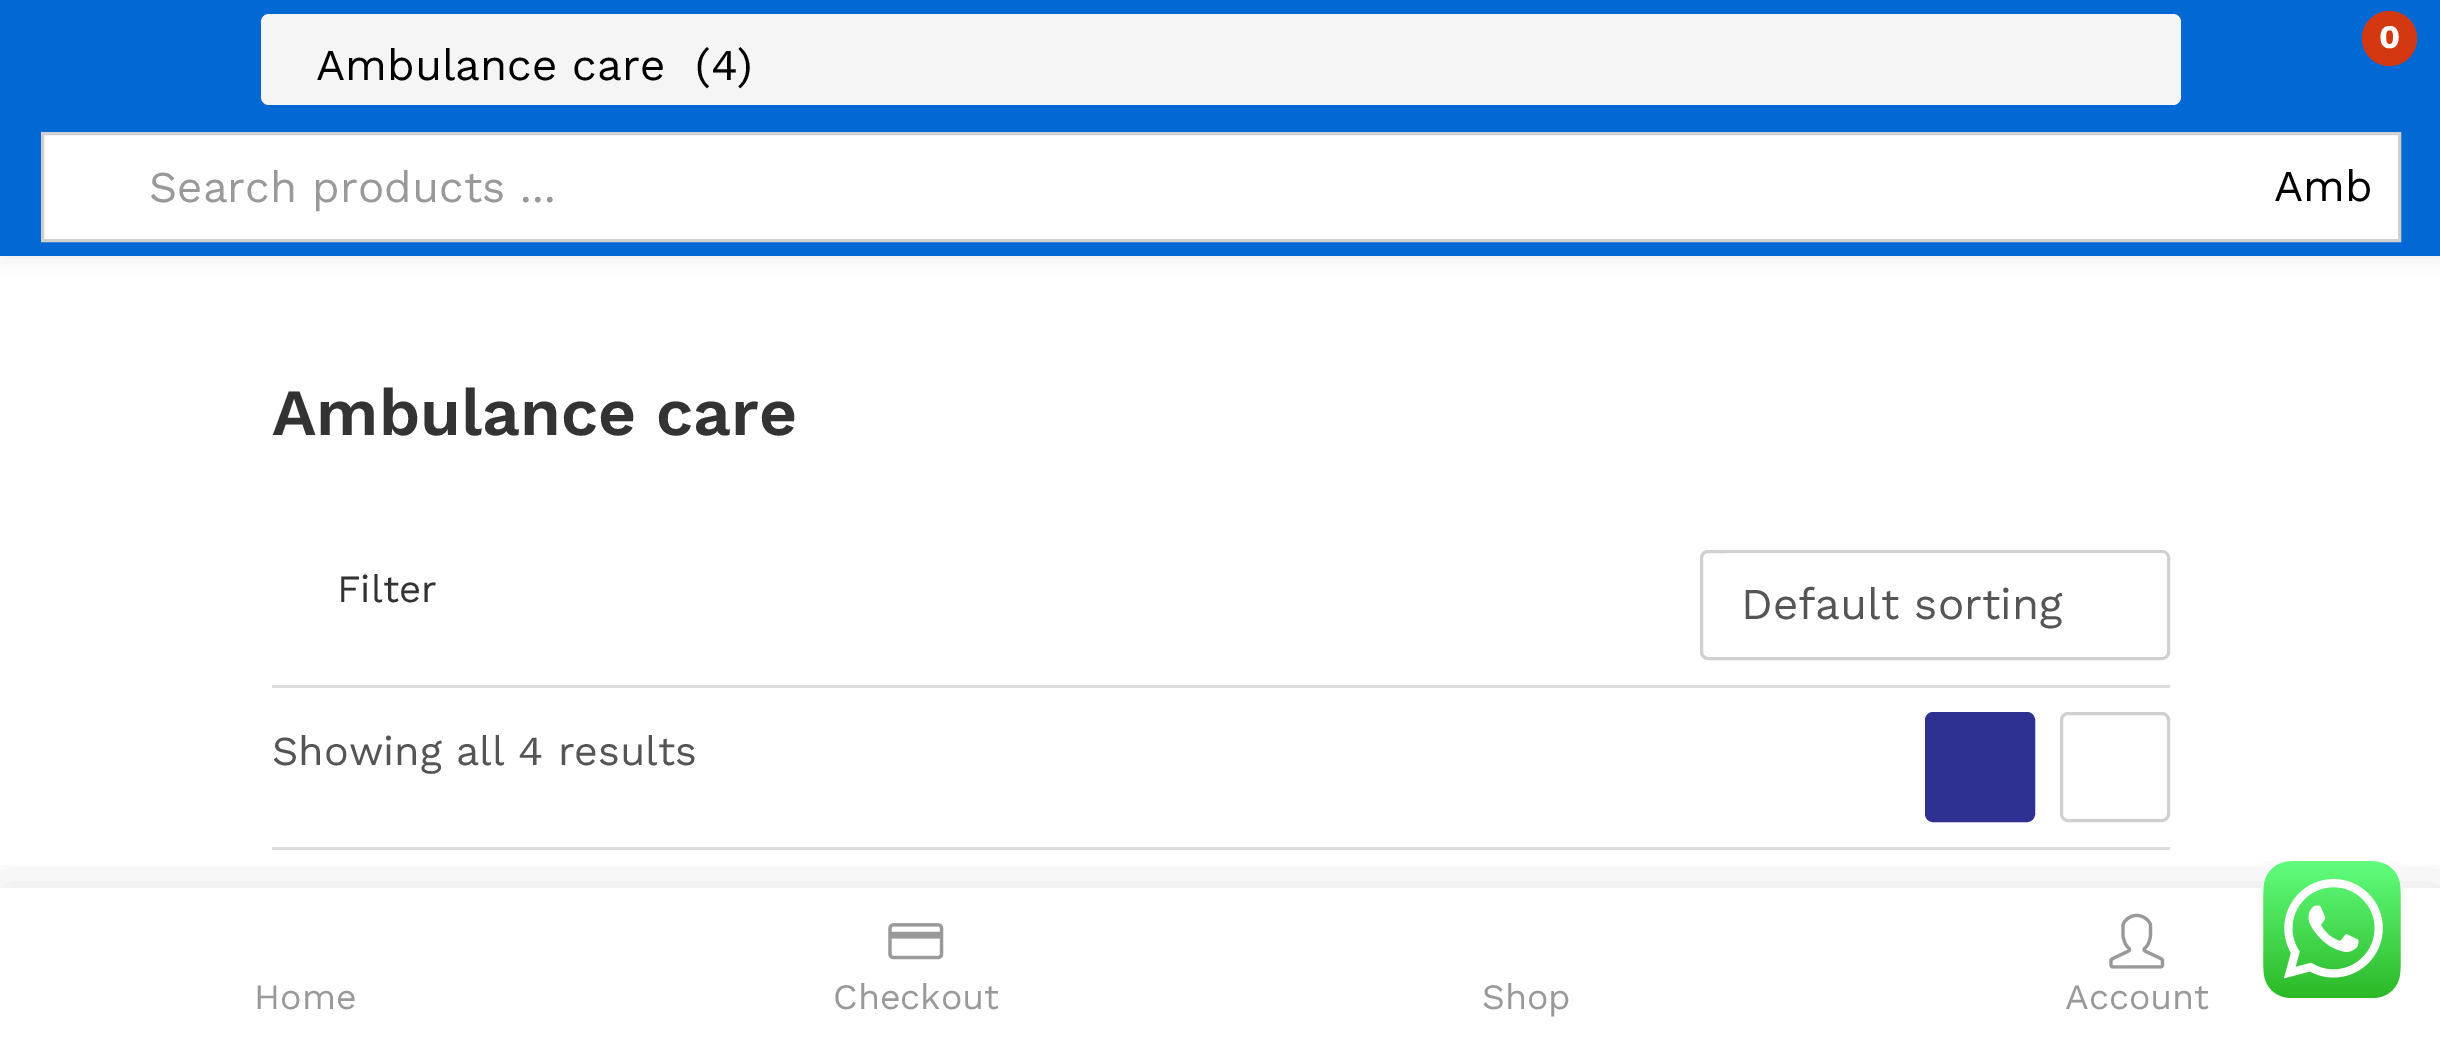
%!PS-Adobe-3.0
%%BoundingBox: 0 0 2440 1039
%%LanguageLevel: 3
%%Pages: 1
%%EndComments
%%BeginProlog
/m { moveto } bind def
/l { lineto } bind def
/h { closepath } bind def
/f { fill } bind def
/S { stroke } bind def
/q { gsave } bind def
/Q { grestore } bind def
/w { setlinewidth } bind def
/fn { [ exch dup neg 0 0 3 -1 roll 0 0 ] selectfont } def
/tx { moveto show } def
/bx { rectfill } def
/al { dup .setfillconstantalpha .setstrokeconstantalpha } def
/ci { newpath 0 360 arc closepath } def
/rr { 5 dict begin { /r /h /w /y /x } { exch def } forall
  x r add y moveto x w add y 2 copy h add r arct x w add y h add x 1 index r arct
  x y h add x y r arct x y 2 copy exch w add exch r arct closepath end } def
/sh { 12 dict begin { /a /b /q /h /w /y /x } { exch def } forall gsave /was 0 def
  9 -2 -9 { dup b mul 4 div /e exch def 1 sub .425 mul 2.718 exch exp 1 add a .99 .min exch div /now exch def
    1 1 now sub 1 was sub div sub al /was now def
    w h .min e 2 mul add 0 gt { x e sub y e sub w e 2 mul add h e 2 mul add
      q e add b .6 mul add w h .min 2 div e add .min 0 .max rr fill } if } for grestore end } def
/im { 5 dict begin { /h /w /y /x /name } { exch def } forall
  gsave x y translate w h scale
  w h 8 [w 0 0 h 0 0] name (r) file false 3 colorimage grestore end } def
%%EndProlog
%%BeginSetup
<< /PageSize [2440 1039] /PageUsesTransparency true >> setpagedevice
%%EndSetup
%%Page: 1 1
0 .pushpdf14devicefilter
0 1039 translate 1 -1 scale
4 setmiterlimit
1 setgray
0 0 2440 1039 bx
0 setgray
0 0 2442 256 0 11 0.1 sh
0.008 0.408 0.827 setrgbcolor
0 0 2440 256 bx
0.831 0.22 0.067 setrgbcolor
2389.5 38.5 27.5 ci f
/WorkSans-Bold 33 fn
1 setgray
(0) 2379 48 tx
0.961 setgray
261 14 1920 91 8 rr f
/WorkSans-Regular 44 fn
0 setgray
(Ambulance care  \(4\)) 316 80 tx
1 setgray
42.5 133.5 m 2399.5 133.5 l 2399.5 240.5 l 42.5 240.5 l h q f Q
0.816 setgray
3 w
S
0.6 setgray
(Search products ...) 149 202 tx
0 setgray
(Amb) 2274 201 tx
/WorkSans-SemiBold 66 fn
0.2 setgray
(Ambulance care) 272 435 tx
/WorkSans-Regular 38.5 fn
(Filter) 337 602 tx
0.867 setgray
272 685 1898 3 bx
0.816 setgray
1701.5 551.5 467 107 6.5 rr S
1 setgray
1722 553 445 104 6 rr f
/WorkSans-Regular 44 fn
0.333 setgray
(Default sorting) 1741 619 tx
0.867 setgray
272 847 1898 3 bx
/WorkSans-Regular 41.25 fn
0.333 setgray
(Showing all 4 results) 272 765 tx
0.18 0.192 0.573 setrgbcolor
1926.5 713.5 107 107 6.5 rr q f Q
S
0.816 setgray
2061.5 713.5 107 107 6.5 rr S
q
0 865 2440 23 rectclip
0 setgray
0 888 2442 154 0 27.5 0.1 sh
Q
/WorkSans-Regular 35.75 fn
0.6 setgray
(Home) 254 1009 tx
(image0.raw) 888 923 56 37 im
(Checkout) 833 1009 tx
(Shop) 1482 1009 tx
(image1.raw) 2109 913 56 56 im
(Account) 2065 1009 tx
(image2.raw) 2263 861 138 137 im
.poppdf14devicefilter showpage
%%EOF
